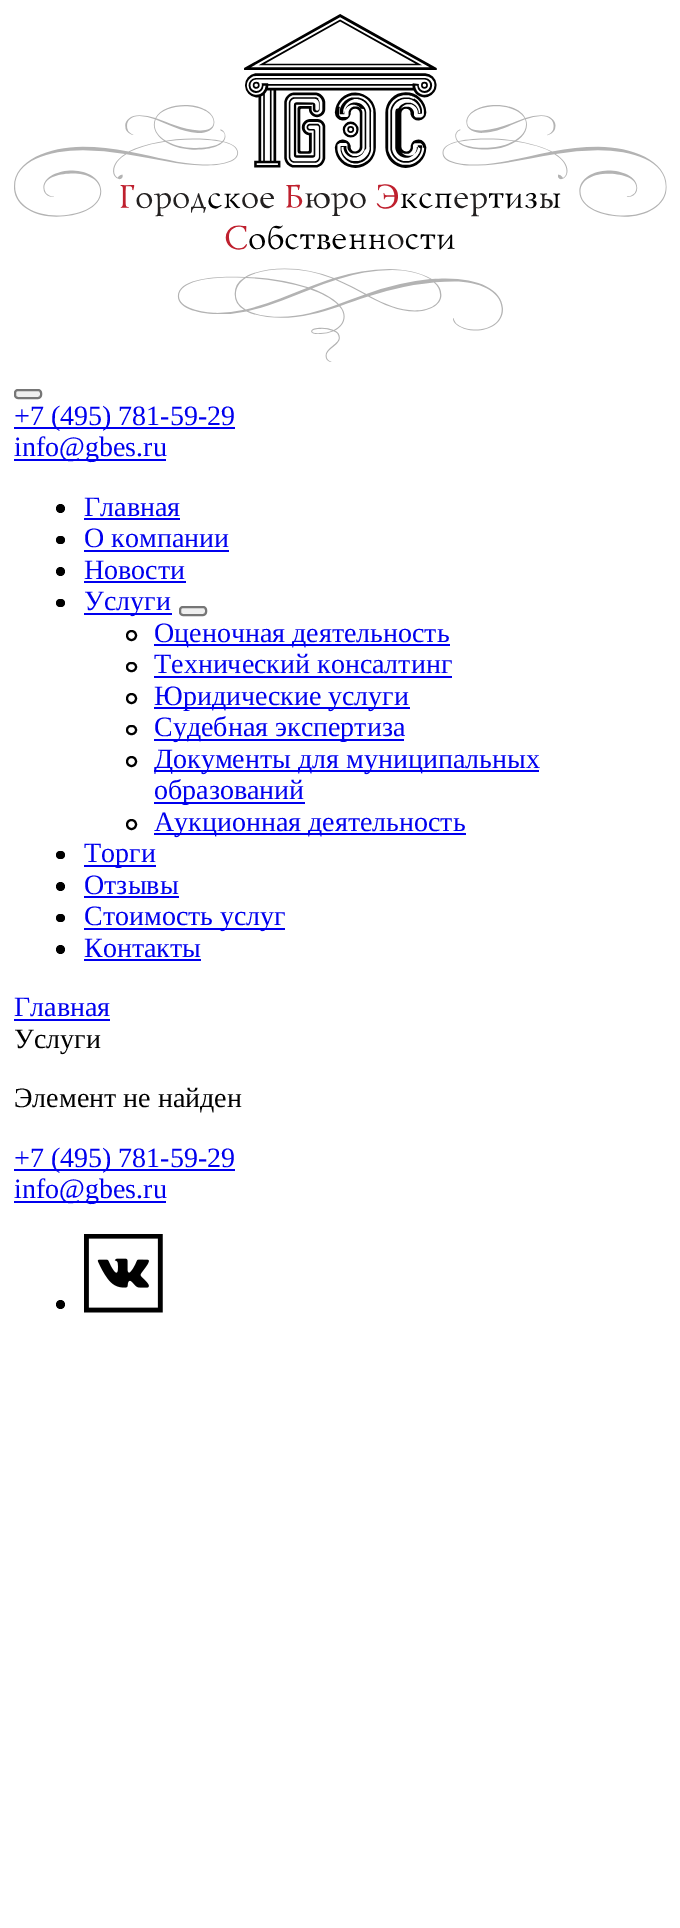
%!PS-Adobe-3.0
%%BoundingBox: 0 0 680 1928
%%LanguageLevel: 3
%%Pages: 1
%%EndComments
%%BeginProlog
/f { fill } bind def
/S { stroke } bind def
/q { gsave } bind def
/Q { grestore } bind def
/w { setlinewidth } bind def
/fn { [ exch dup neg 0 0 3 -1 roll 0 0 ] selectfont } def
/tx { moveto show } def
/bx { rectfill } def
/ci { newpath 0 360 arc closepath } def
/rr { 5 dict begin { /r /h /w /y /x } { exch def } forall
  x r add y moveto x w add y 2 copy h add r arct x w add y h add x 1 index r arct
  x y h add x y r arct x y 2 copy exch w add exch r arct closepath end } def
/im { 5 dict begin { /h /w /y /x /name } { exch def } forall
  gsave x y translate w h scale
  w h 8 [w 0 0 h 0 0] name (r) file false 3 colorimage grestore end } def
%%EndProlog
%%BeginSetup
<< /PageSize [680 1928] >> setpagedevice
%%EndSetup
%%Page: 1 1
0 1928 translate 1 -1 scale
4 setmiterlimit
1 setgray
0 0 680 1928 bx
(image0.raw) 14 14 653 348 im
0.937 setgray
15 390 26 8 3 rr q f Q
0.463 setgray
2 w
S
0 0 0.933 setrgbcolor
14 427 221 2 bx
/LiberationSerif-Regular 28 fn
(+7 \(495\) 781-59-29) 14 425 tx
14 459 152 2 bx
(info@gbes.ru) 14 456 tx
0 setgray
60.5 508.5 4.5 ci f
0 0 0.933 setrgbcolor
(Главная) 84 516 tx
84 518 96 2 bx
0 setgray
56 536 9 8 4 rr f
0 0 0.933 setrgbcolor
(О компании) 84 547 tx
84 550 145 2 bx
0 setgray
60.5 571.5 4.5 ci f
0 0 0.933 setrgbcolor
(Новости) 84 579 tx
84 581 102 2 bx
0 setgray
56 599 9 8 4 rr f
0 0 0.933 setrgbcolor
84 613 88 2 bx
(Услуги) 84 610 tx
0.937 setgray
180 607 26 8 3 rr q f Q
0.463 setgray
S
0 setgray
131.5 635.5 4.5 ci S
0 0 0.933 setrgbcolor
154 644 296 2 bx
(Оценочная деятельность) 154 642 tx
0 setgray
127 663 9 8 4 rr S
0 0 0.933 setrgbcolor
(Технический консалтинг) 154 673 tx
154 676 298 2 bx
0 setgray
131.5 698.5 4.5 ci S
0 0 0.933 setrgbcolor
154 707 256 2 bx
(Юридические услуги) 154 705 tx
0 setgray
127 726 9 8 4 rr S
0 0 0.933 setrgbcolor
154 739 250 2 bx
(Судебная экспертиза) 154 736 tx
0 setgray
131.5 761.5 4.5 ci S
0 0 0.933 setrgbcolor
154 770 385 2 bx
(Документы для муниципальных) 154 768 tx
154 802 151 2 bx
(образований) 154 799 tx
0 setgray
131.5 824.5 4.5 ci S
0 0 0.933 setrgbcolor
154 833 312 2 bx
(Аукционная деятельность) 154 831 tx
0 setgray
56 851 9 8 4 rr f
0 0 0.933 setrgbcolor
84 865 72 2 bx
(Торги) 84 862 tx
0 setgray
60.5 886.5 4.5 ci f
0 0 0.933 setrgbcolor
(Отзывы) 84 894 tx
84 896 95 2 bx
0 setgray
56 914 9 8 4 rr f
0 0 0.933 setrgbcolor
84 928 201 2 bx
(Стоимость услуг) 84 925 tx
0 setgray
60.5 949.5 4.5 ci f
0 0 0.933 setrgbcolor
(Контакты) 84 957 tx
84 959 117 2 bx
(Главная) 14 1016 tx
14 1019 96 2 bx
0 setgray
(Услуги) 14 1048 tx
(Элемент не найден) 14 1107 tx
0 0 0.933 setrgbcolor
14 1169 221 2 bx
(+7 \(495\) 781-59-29) 14 1167 tx
14 1201 152 2 bx
(info@gbes.ru) 14 1198 tx
0 setgray
60.5 1304.5 4.5 ci f
(image1.raw) 84 1234 79 79 im
showpage
%%EOF
